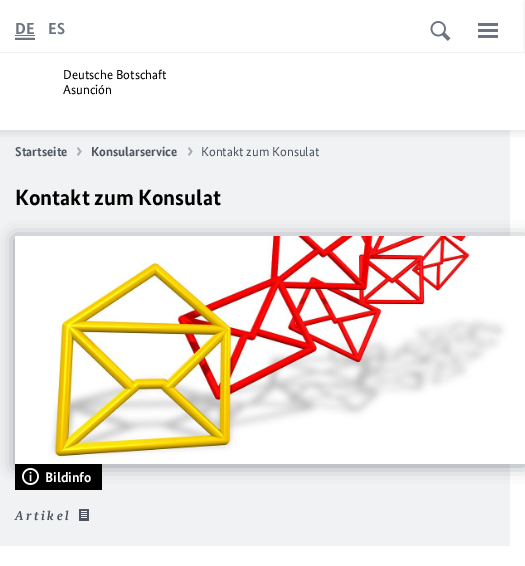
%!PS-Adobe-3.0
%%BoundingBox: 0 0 525 566
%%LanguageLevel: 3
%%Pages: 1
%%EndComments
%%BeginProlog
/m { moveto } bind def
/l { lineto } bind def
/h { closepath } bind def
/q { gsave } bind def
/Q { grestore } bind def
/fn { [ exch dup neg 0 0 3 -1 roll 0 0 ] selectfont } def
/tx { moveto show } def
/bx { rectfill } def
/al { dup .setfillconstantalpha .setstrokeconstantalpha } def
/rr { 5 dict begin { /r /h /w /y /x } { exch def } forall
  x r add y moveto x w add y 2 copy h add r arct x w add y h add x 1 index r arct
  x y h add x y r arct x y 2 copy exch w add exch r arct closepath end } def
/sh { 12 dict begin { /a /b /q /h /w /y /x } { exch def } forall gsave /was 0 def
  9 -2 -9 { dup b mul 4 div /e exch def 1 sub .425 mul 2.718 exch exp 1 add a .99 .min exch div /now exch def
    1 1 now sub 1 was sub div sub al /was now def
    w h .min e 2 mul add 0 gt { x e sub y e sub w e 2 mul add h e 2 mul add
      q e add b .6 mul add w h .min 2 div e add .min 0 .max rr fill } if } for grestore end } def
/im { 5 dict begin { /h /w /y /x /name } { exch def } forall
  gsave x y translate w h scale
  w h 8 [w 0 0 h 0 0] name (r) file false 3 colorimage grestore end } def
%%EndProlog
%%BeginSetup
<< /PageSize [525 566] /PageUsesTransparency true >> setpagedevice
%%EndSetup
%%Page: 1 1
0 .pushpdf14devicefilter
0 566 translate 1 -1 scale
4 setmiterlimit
1 setgray
0 0 525 566 bx
0.945 0.949 0.953 setrgbcolor
0 130 510 416 bx
q
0 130 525 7 rectclip
0 setgray
-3 -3 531 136 0 4.5 0.1 sh
Q
/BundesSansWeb-Bold 16 fn
0.42 0.459 0.506 setrgbcolor
(DE) 15 34 tx
15 35 20 1 bx
0.855 0.867 0.878 setrgbcolor
15 37 19 1 bx
0.42 0.459 0.506 setrgbcolor
15 38 20 2 bx
(ES) 48 34 tx
(image0.raw) 430 21 21 20 im
478 29 20 3 bx
478 23 20 3 bx
478 35 20 3 bx
0.945 0.949 0.953 setrgbcolor
0 52 525 1 bx
/BundesSansWeb-Regular 13 fn
0 setgray
(Deutsche Botschaft) 63 79 tx
(Asunción) 63 94 tx
0.878 0.886 0.894 setrgbcolor
525 1 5 51 0 1.5 1 sh
/BundesSansWeb-Bold 13 fn
0.31 0.337 0.38 setrgbcolor
(Startseite) 15 156 tx
(image1.raw) 77 147 5 9 im
(Konsularservice) 91 156 tx
(image1.raw) 188 147 5 9 im
/BundesSansWeb-Regular 13 fn
(Kontakt zum Konsulat) 201 156 tx
/BundesSansWeb-Bold 22 fn
0 setgray
(Kontakt zum Konsulat) 15 205 tx
q
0 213 m 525 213 l 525 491 l 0 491 l h 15 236 m 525 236 l 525 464 l 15 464 l h eoclip newpath
0.31 0.337 0.38 setrgbcolor
15 238 510 228 0 8 0.6 sh
Q
(image2.raw) 15 236 495 228 im
15 464 87 26 bx
(image3.raw) 22 468 17 17 im
/BundesSansWeb-Bold 14 fn
1 setgray
(Bildinfo) 45 482 tx
/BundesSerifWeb-BoldItalic 13 fn
0.31 0.337 0.38 setrgbcolor
15 520 m 2.5 0 (Artikel) ashow
(image4.raw) 79 509 10 12 im
.poppdf14devicefilter showpage
%%EOF
